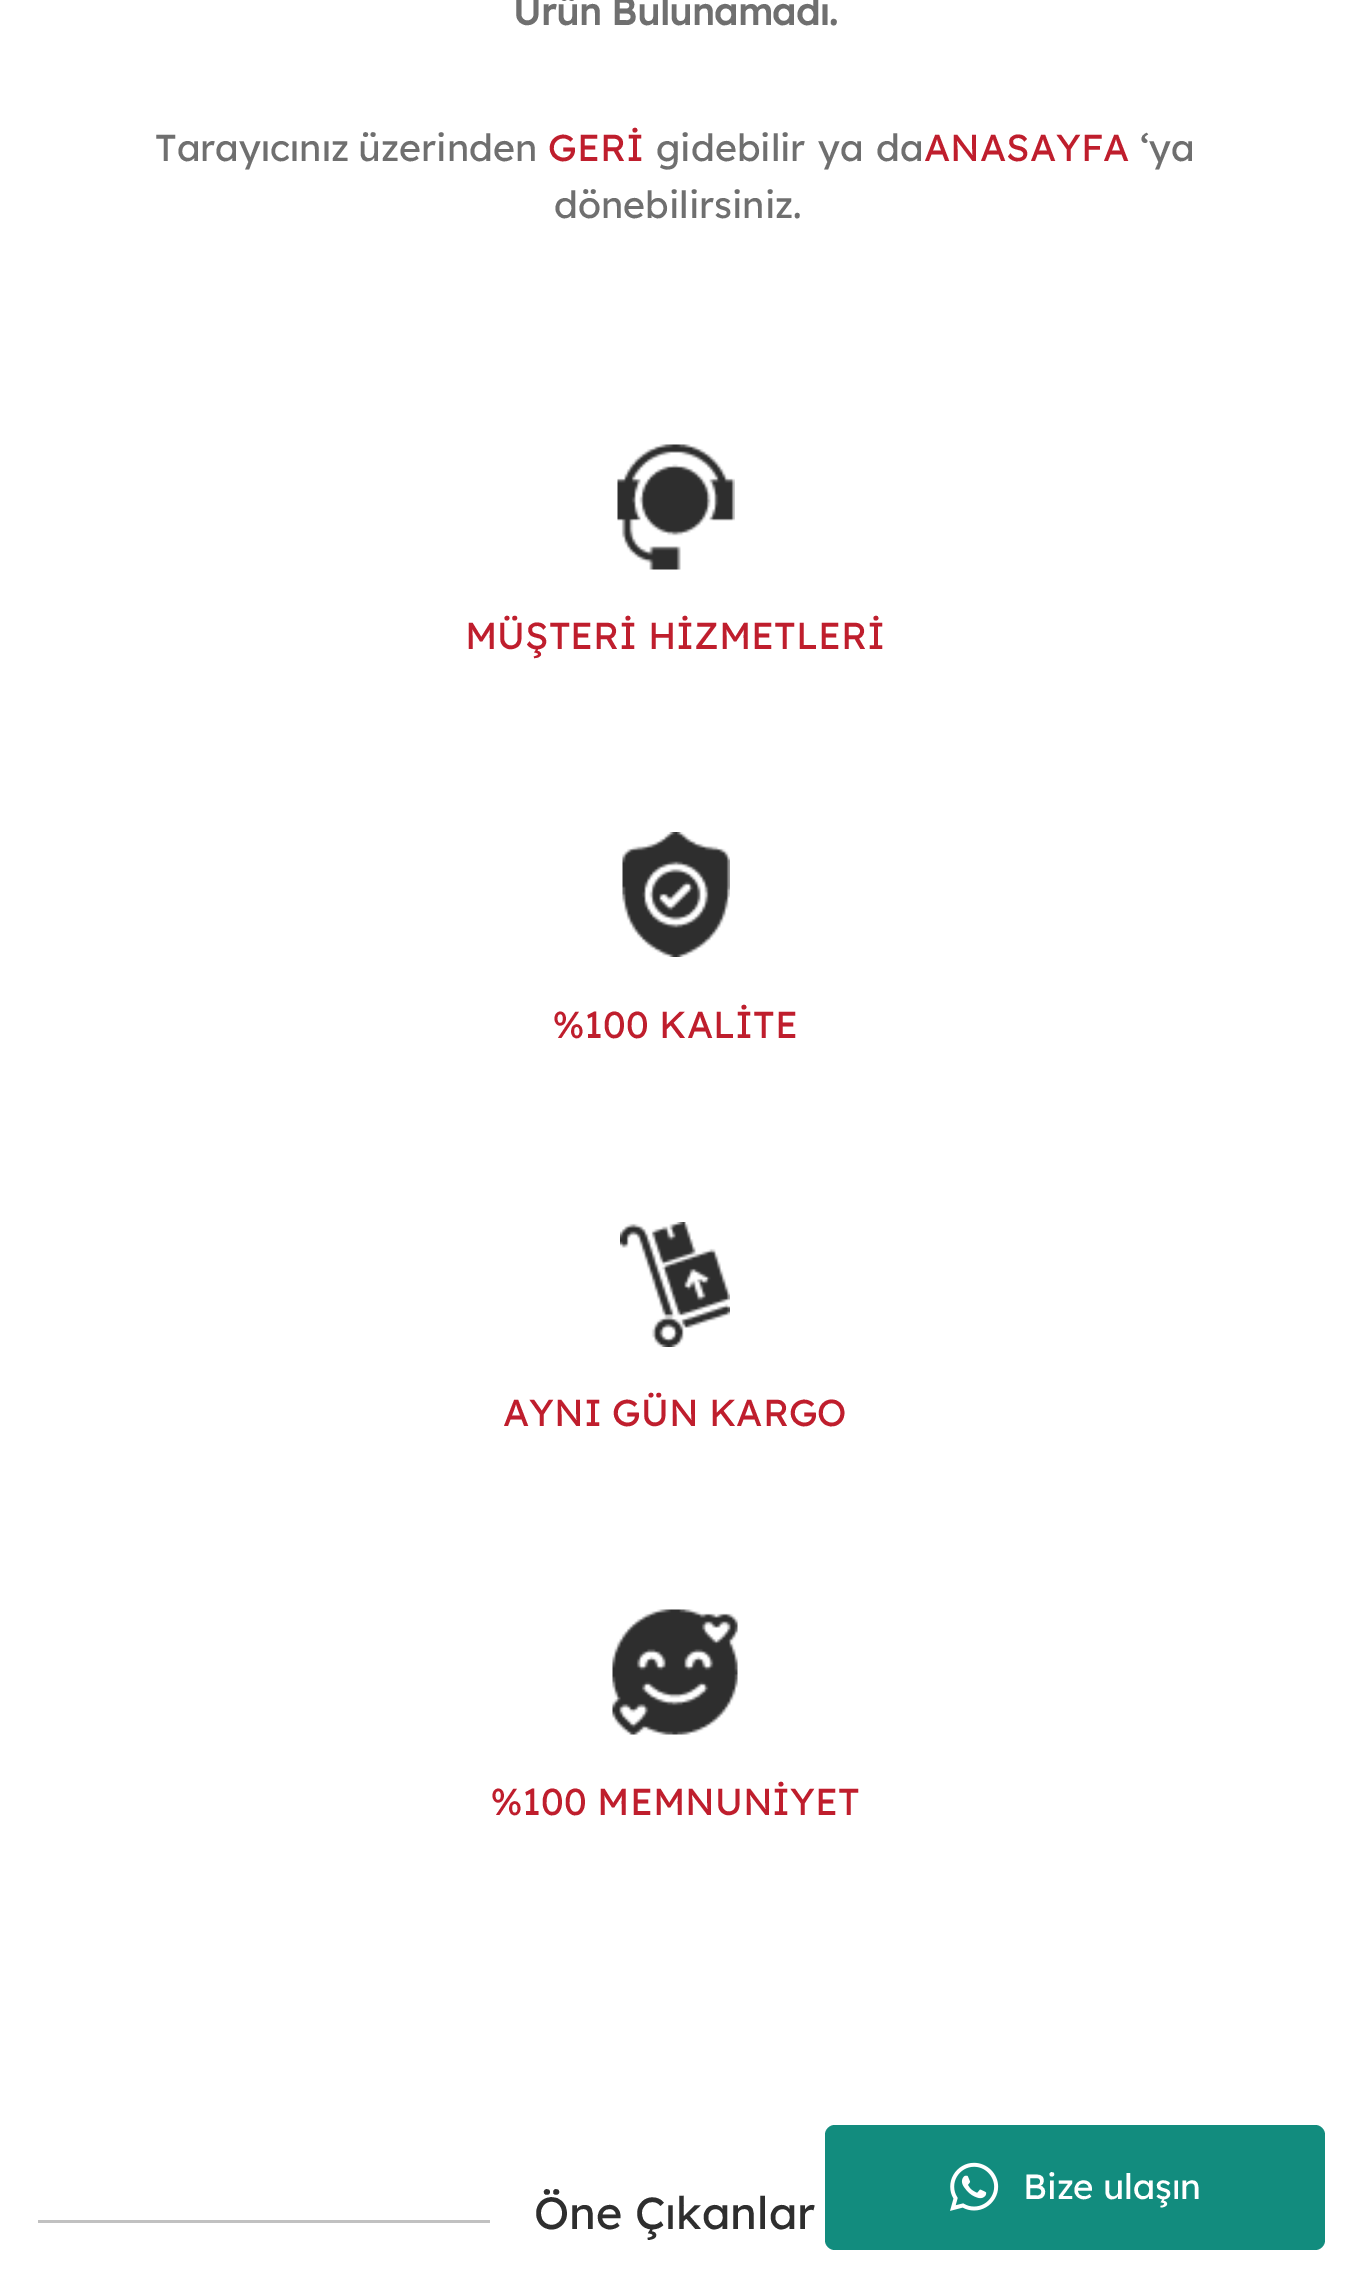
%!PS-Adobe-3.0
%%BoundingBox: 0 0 1349 2275
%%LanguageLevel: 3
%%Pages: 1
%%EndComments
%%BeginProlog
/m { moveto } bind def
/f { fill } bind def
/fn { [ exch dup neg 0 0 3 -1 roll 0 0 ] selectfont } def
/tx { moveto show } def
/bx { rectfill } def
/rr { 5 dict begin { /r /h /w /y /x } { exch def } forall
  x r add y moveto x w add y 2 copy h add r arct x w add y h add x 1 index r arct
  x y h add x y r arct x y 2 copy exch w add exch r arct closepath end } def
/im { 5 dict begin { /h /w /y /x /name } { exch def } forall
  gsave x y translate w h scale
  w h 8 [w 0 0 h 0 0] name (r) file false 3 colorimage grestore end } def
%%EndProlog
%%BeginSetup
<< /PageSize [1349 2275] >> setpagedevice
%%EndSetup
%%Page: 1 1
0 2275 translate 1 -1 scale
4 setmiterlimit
1 setgray
0 0 1349 2275 bx
/LexendDeca-Bold 37.5 fn
0.435 setgray
(Ürün Bulunamadı.) 513 25 tx
/LexendDeca-Regular 37.5 fn
155 161 m -1 0 32 (Tarayıcınız üzerinden) widthshow
0.749 0.118 0.176 setrgbcolor
(GERİ) 548 161 tx
0.435 setgray
656 161 m 2 0 32 (gidebilir ya da) widthshow
0.749 0.118 0.176 setrgbcolor
(ANASAYFA) 924 161 tx
0.435 setgray
(‘ya) 1140 161 tx
(dönebilirsiniz.) 554 218 tx
(image0.raw) 617 444 118 126 im
0.749 0.118 0.176 setrgbcolor
(MÜŞTERİ HİZMETLERİ) 465 649 tx
(image1.raw) 622 832 108 125 im
(%100 KALİTE) 553 1038 tx
(image2.raw) 620 1222 110 125 im
(AYNI GÜN KARGO) 503 1426 tx
(image3.raw) 612 1609 126 126 im
(%100 MEMNUNİYET) 491 1815 tx
0.757 setgray
38 2220 452 3 bx
/LexendDeca-Regular 45 fn
0.18 setgray
(Öne Çıkanlar) 534 2229 tx
0.071 0.549 0.494 setrgbcolor
825 2125 500 125 10 rr f
(image4.raw) 950 2162 49 49 im
/LexendDeca-Regular 35 fn
1 setgray
1023 2199 m -1 0 32 (Bize ulaşın) widthshow
showpage
%%EOF
